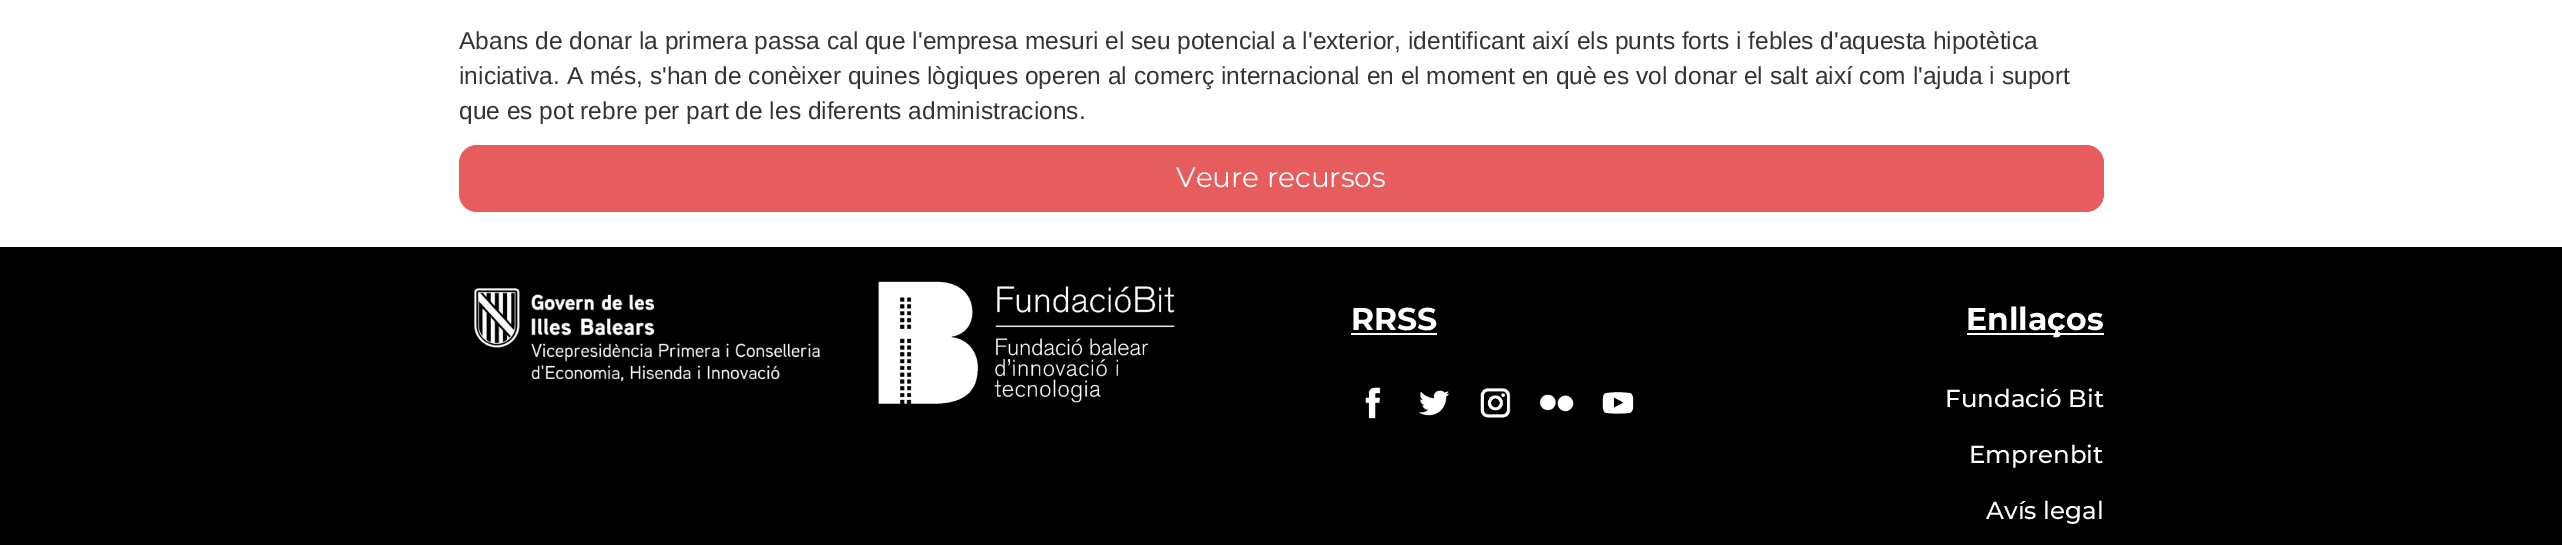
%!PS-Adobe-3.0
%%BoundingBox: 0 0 2562 545
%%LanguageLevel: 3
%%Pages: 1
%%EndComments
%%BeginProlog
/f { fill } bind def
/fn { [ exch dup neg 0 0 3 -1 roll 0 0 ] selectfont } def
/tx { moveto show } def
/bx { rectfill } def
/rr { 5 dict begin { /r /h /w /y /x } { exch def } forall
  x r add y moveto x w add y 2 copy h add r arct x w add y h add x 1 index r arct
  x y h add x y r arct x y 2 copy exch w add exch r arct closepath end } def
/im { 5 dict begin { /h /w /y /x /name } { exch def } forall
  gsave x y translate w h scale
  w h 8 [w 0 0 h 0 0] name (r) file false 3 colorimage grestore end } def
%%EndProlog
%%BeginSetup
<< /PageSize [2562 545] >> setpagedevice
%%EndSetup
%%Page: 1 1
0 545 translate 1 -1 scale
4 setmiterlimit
1 setgray
0 0 2562 545 bx
/LiberationSans-Regular 24.5 fn
0.2 setgray
(Abans de donar la primera passa cal que l'empresa mesuri el seu potencial a l'exterior, identificant així els punts forts i febles d'aquesta hipotètica) 459 49 tx
(iniciativa. A més, s'han de conèixer quines lògiques operen al comerç internacional en el moment en què es vol donar el salt així com l'ajuda i suport) 459 84 tx
(que es pot rebre per part de les diferents administracions.) 459 119 tx
0.906 0.361 0.361 setrgbcolor
459 145 1645 67 18 rr f
/Montserrat-Regular 28 fn
1 setgray
(Veure recursos) 1176 187 tx
0 setgray
0 247 2562 298 bx
(image0.raw) 474 288 347 94 im
(image1.raw) 878 281 297 123 im
/Montserrat-Bold 31.5 fn
1 setgray
(RRSS) 1351 330 tx
1351 333 86 2 bx
(image2.raw) 1365 387 16 32 im
(image3.raw) 1419 390 31 26 im
(image4.raw) 1480 388 31 30 im
(image5.raw) 1539 394 35 18 im
(image6.raw) 1602 392 32 22 im
1967 333 137 2 bx
(Enllaços) 1966 330 tx
/Montserrat-Medium 24.5 fn
(Fundació Bit) 1945 407 tx
(Emprenbit) 1969 463 tx
(Avís legal) 1986 519 tx
showpage
%%EOF
